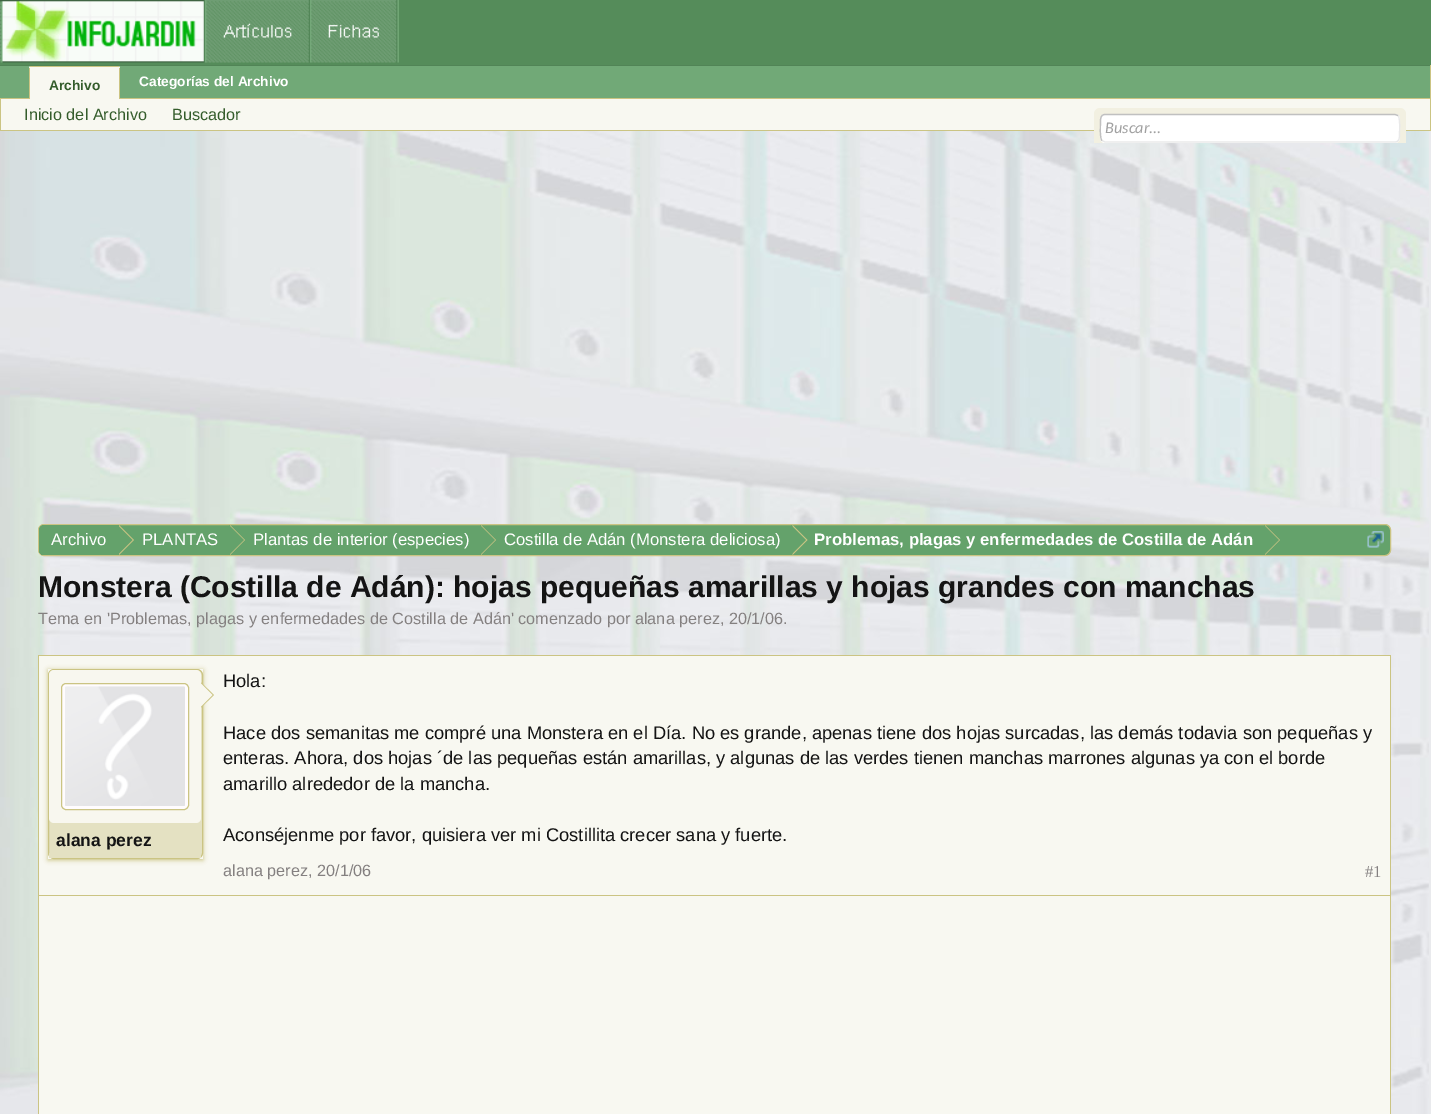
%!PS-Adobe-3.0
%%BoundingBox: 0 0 1431 1114
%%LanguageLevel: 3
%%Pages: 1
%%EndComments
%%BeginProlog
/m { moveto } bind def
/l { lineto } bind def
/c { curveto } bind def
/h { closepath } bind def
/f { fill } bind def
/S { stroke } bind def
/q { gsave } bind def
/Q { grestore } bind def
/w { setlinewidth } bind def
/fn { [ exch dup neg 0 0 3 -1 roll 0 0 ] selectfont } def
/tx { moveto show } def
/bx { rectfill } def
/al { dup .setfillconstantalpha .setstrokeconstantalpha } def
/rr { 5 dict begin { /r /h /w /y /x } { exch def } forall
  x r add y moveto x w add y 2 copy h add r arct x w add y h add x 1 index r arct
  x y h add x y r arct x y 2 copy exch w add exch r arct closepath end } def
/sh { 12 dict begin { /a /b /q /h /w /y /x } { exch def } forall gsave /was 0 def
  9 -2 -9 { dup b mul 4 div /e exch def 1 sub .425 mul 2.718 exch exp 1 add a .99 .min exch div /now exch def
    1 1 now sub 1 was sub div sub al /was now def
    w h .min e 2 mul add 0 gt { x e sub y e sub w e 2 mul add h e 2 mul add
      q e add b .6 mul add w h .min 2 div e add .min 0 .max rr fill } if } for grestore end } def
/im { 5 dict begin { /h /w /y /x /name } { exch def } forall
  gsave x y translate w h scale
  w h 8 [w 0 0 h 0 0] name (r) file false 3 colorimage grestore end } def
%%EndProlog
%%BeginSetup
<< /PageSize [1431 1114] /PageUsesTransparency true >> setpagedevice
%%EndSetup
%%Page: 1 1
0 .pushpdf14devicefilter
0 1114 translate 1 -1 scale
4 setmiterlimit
0.914 0.918 0.929 setrgbcolor
0 0 1431 1114 bx
0.333 0.549 0.353 setrgbcolor
0 0 1431 65 bx
(image0.raw) 0 0 399 63 im
0.443 0.663 0.467 setrgbcolor
0 66 1430 32 bx
0.318 0.518 0.337 setrgbcolor
0 65 1431 1 bx
0.796 0.769 0.514 setrgbcolor
1430 65 1 66 bx
0 98 1431 1 bx
/LiberationSans-Bold 13.75 fn
1 setgray
(Categorías del Archivo) 139 86 tx
0.973 0.973 0.945 setrgbcolor
31.5 66 m 117.5 66 l 119 66 120 67 120 68.5 c 120 101 l 29 101 l 29 68.5 l 29 67 30 66 31.5 66 c h f
0.796 0.769 0.514 setrgbcolor
30 66 89 1 bx
119 68 1 33 bx
29 68 1 33 bx
0.204 0.361 0.169 setrgbcolor
(Archivo) 49 90 tx
0.973 0.973 0.945 setrgbcolor
1 99 1429 31 bx
0.796 0.769 0.514 setrgbcolor
0 130 1431 1 bx
0 99 1 32 bx
/LiberationSans-Regular 16.25 fn
0.204 0.361 0.169 setrgbcolor
(Inicio del Archivo) 24 120 tx
(Buscador) 172 120 tx
(image1.raw) 0 131 1429 983 im
0.949 0.941 0.882 setrgbcolor
1094 108 312 35 6 rr f
1094 138 312 5 bx
1 setgray
1100 114 300 29 5 rr f
0.914 setgray
1.2 w
1398 115.5 m 1400.5 118.5 1399.5 130.5 1399.5 134.5 c 1399.5 137.5 1399.5 142 1395 142 c 1105 142 l 1102 140.5 l S
0.753 setgray
1102 140.5 m 1099.5 138 1100.5 125.5 1100.5 122 c 1100.5 118.5 1100.5 114.5 1105 114.5 c 1395 114.5 l 1398 115.5 l S
/Carlito-Italic 16.25 fn
0.627 setgray
(Buscar...) 1105 133 tx
0.392 0.635 0.42 setrgbcolor
38.5 524.5 1352 31 5.5 rr q f Q
0.796 0.769 0.514 setrgbcolor
1 w
S
q
39 525 1351 30 5 rr clip newpath
0.392 0.635 0.42 setrgbcolor
44 525 m 119 525 l 119 556 l 44 556 l 41 556 39 554 39 551 c 39 530 l 39 527 41 525 44 525 c h f
Q
/LiberationSans-Regular 16.7 fn
1 setgray
(Archivo) 51 545 tx
0.796 0.769 0.514 setrgbcolor
119 555 m 119 525 l 134 540 l h f
0.392 0.635 0.42 setrgbcolor
117.5 555 m 117.5 525 l 132.5 540 l h f
1 setgray
(PLANTAS) 142 545 tx
0.796 0.769 0.514 setrgbcolor
230 555 m 230 525 l 245 540 l h f
0.392 0.635 0.42 setrgbcolor
229 555 m 229 525 l 244 540 l h f
1 setgray
(Plantas de interior \(especies\)) 253 545 tx
0.796 0.769 0.514 setrgbcolor
481 555 m 481 525 l 496 540 l h f
0.392 0.635 0.42 setrgbcolor
480 555 m 480 525 l 495 540 l h f
1 setgray
(Costilla de Adán \(Monstera deliciosa\)) 504 545 tx
0.796 0.769 0.514 setrgbcolor
792.5 555 m 792.5 525 l 807.5 540 l h f
0.392 0.635 0.42 setrgbcolor
791 555 m 791 525 l 806 540 l h f
/LiberationSans-Bold 16.7 fn
1 setgray
(Problemas, plagas y enfermedades de Costilla de Adán) 814 545 tx
0.796 0.769 0.514 setrgbcolor
1265 555 m 1265 525 l 1280 540 l h f
0.392 0.635 0.42 setrgbcolor
1264 555 m 1264 525 l 1279 540 l h f
(image2.raw) 1367 531 17 17 im
/LiberationSans-Bold 30 fn
0.078 setgray
(Monstera \(Costilla de Adán\): hojas pequeñas amarillas y hojas grandes con manchas) 38 597 tx
/LiberationSans-Regular 16.25 fn
0.518 0.502 0.502 setrgbcolor
(Tema en 'Problemas, plagas y enfermedades de Costilla de Adán' comenzado por alana perez, 20/1/06.) 38 624 tx
0.973 0.973 0.945 setrgbcolor
39 656 1351 239 bx
0.796 0.769 0.514 setrgbcolor
38 655 1353 1 bx
1390 655 1 240 bx
38 655 1 240 bx
q
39 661 m 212 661 l 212 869 l 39 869 l h 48 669 m 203 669 l 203 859 l 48 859 l h eoclip newpath
48 670 155 190 0 2.5 1 sh
Q
0.894 0.882 0.761 setrgbcolor
48.5 669.5 154 189 5.5 rr q f Q
0.796 0.769 0.514 setrgbcolor
S
0.973 0.969 0.937 setrgbcolor
49 670 152 153 5 rr f
1 0.988 0.996 setrgbcolor
61.5 683.5 127 126 4.5 rr q f Q
0.796 0.769 0.514 setrgbcolor
S
(image3.raw) 65 686 120 120 im
201 707.5 m 201 682.5 l 214 695 l h f
0.973 0.969 0.937 setrgbcolor
200 707.5 m 200 682.5 l 212.5 695 l h f
0.894 0.882 0.761 setrgbcolor
49 853 152 5 bx
/LiberationSans-Bold 17.5 fn
0.078 setgray
(alana perez) 56 846 tx
/LiberationSans-Regular 18.33 fn
(Hola:) 223 687 tx
(Hace dos semanitas me compré una Monstera en el Día. No es grande, apenas tiene dos hojas surcadas, las demás todavia son pequeñas y) 223 739 tx
(enteras. Ahora, dos hojas ´de las pequeñas están amarillas, y algunas de las verdes tienen manchas marrones algunas ya con el borde) 223 764 tx
(amarillo alrededor de la mancha.) 223 790 tx
(Aconséjenme por favor, quisiera ver mi Costillita crecer sana y fuerte.) 223 841 tx
/LiberationSans-Regular 16.25 fn
0.518 0.502 0.502 setrgbcolor
(alana perez, 20/1/06) 223 876 tx
/LiberationSerif-Regular 16.7 fn
(#1) 1365 877 tx
0.973 0.973 0.945 setrgbcolor
39 896 1351 218 bx
0.796 0.769 0.514 setrgbcolor
38 895 1353 1 bx
1390 895 1 219 bx
38 895 1 219 bx
.poppdf14devicefilter showpage
%%EOF
